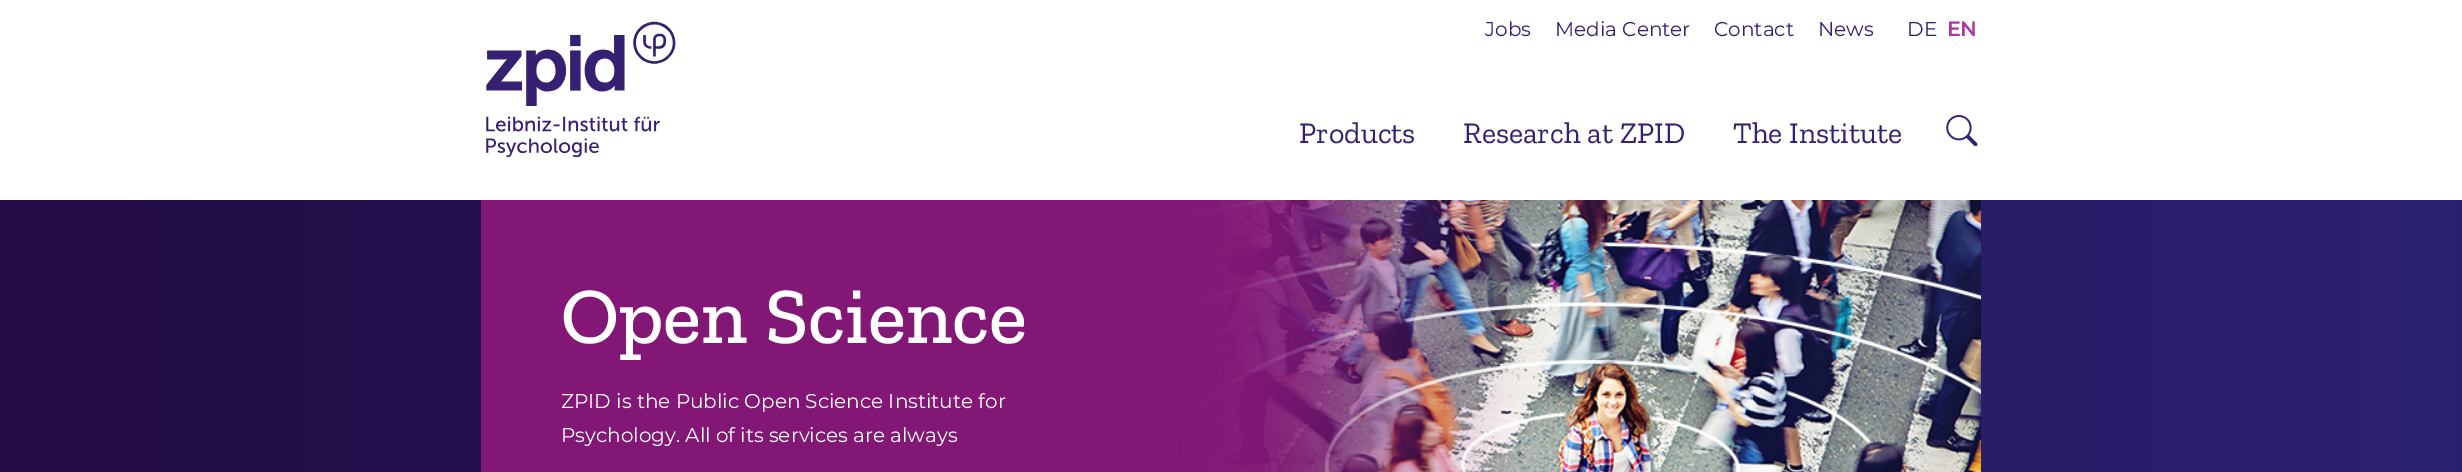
%!PS-Adobe-3.0
%%BoundingBox: 0 0 2462 472
%%LanguageLevel: 3
%%Pages: 1
%%EndComments
%%BeginProlog
/m { moveto } bind def
/l { lineto } bind def
/h { closepath } bind def
/q { gsave } bind def
/Q { grestore } bind def
/fn { [ exch dup neg 0 0 3 -1 roll 0 0 ] selectfont } def
/tx { moveto show } def
/bx { rectfill } def
/im { 5 dict begin { /h /w /y /x /name } { exch def } forall
  gsave x y translate w h scale
  w h 8 [w 0 0 h 0 0] name (r) file false 3 colorimage grestore end } def
%%EndProlog
%%BeginSetup
<< /PageSize [2462 472] >> setpagedevice
%%EndSetup
%%Page: 1 1
0 472 translate 1 -1 scale
4 setmiterlimit
1 setgray
0 0 2462 472 bx
(image0.raw) 486 21 190 136 im
/Montserrat-Regular 20 fn
0.208 0.125 0.443 setrgbcolor
(Jobs) 1485 36 tx
(Media Center) 1555 36 tx
(Contact) 1714 36 tx
(News) 1818 36 tx
0.169 0.129 0.443 setrgbcolor
(DE) 1907 36 tx
/Montserrat-Bold 20 fn
0.686 0.2 0.631 setrgbcolor
(EN) 1947 36 tx
/ZillaSlab-Regular 30 fn
0.208 0.125 0.443 setrgbcolor
(Products) 1299 143 tx
(Research at ZPID) 1463 143 tx
(The Institute) 1733 143 tx
(image1.raw) 1946 115 32 31 im
q 0 200 m 2462 200 l 2462 472 l 0 472 l h clip newpath
<< /ShadingType 2 /ColorSpace /DeviceRGB /Coords [0 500 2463 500] /Extend [true true] /Function << /FunctionType 2 /Domain [0 1] /C0 [0.141 0.051 0.275] /C1 [0.169 0.129 0.443] /N 1 >> >> shfill Q
(image2.raw) 481 200 1500 272 im
/ZillaSlab-Medium 80 fn
1 setgray
(Open Science) 561 343 tx
/Montserrat-Regular 20 fn
(ZPID is the Public Open Science Institute for) 561 408 tx
(Psychology. All of its services are always) 561 442 tx
showpage
%%EOF
